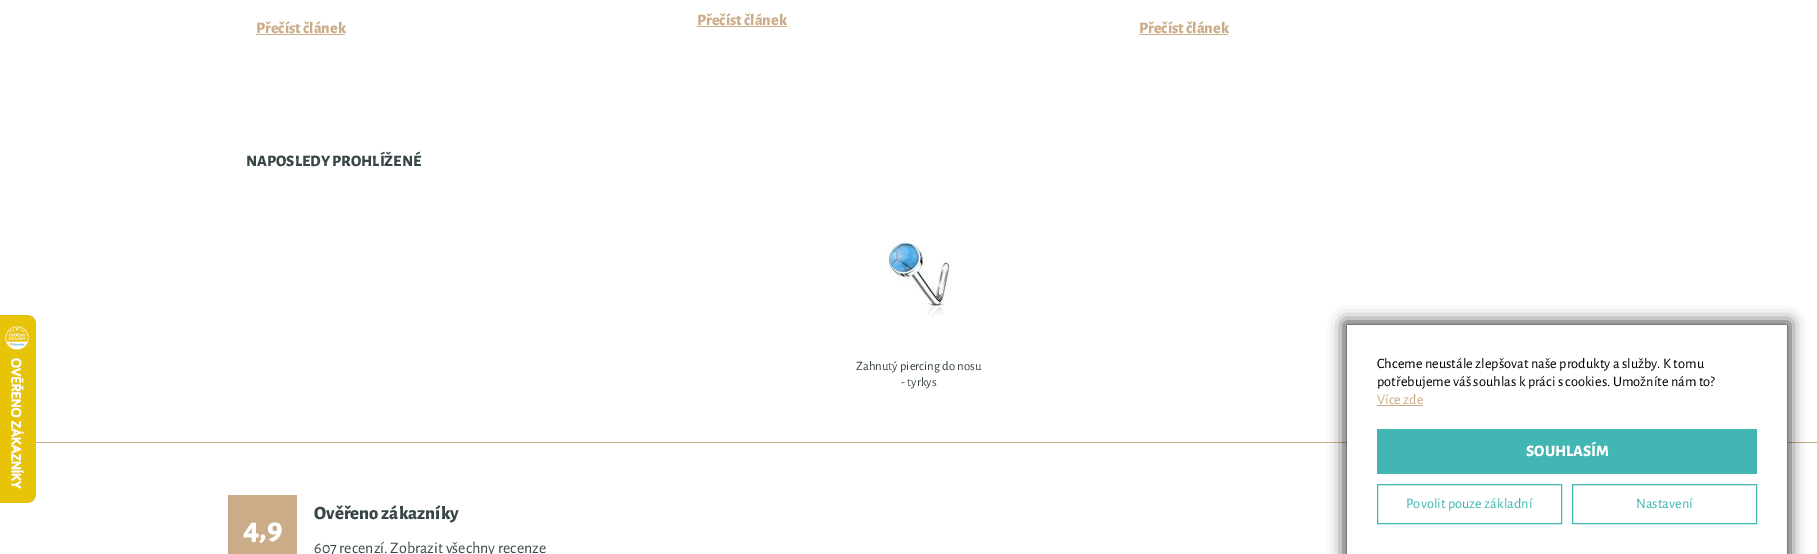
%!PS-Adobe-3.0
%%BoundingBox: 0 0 1817 554
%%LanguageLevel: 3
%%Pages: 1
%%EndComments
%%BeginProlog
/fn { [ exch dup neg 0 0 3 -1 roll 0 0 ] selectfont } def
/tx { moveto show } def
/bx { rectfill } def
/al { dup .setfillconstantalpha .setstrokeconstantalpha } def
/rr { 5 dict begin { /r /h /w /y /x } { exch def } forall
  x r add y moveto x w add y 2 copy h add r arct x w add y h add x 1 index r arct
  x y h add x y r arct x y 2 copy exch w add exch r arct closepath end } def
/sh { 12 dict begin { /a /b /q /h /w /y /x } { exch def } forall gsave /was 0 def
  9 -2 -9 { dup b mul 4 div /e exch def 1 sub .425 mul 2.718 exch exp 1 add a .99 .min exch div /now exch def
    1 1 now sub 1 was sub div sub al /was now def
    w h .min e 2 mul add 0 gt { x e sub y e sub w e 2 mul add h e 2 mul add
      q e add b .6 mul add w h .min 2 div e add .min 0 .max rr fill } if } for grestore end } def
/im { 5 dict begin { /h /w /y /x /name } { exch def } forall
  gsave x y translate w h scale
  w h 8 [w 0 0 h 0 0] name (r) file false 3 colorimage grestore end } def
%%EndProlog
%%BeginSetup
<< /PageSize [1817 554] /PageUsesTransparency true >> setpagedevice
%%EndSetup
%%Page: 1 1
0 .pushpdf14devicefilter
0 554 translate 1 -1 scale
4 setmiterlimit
1 setgray
0 0 1817 554 bx
(image0.raw) 0 315 36 188 im
/AlegreyaSans-ExtraBold 16 fn
0.796 0.675 0.533 setrgbcolor
(Přečíst článek) 697 25 tx
697 26 90 1 bx
(Přečíst článek) 256 33 tx
256 34 89 1 bx
(Přečíst článek) 1139 33 tx
1139 34 89 1 bx
0.224 0.275 0.282 setrgbcolor
(NAPOSLEDY PROHLÍŽENÉ) 246 166 tx
(image1.raw) 887 241 65 76 im
/AlegreyaSans-Regular 12.75 fn
(Zahnutý piercing do nosu) 856 370 tx
(- tyrkys) 901 386 tx
0.796 0.675 0.533 setrgbcolor
36 442 1781 1 bx
/AlegreyaSans-ExtraBold 18.75 fn
0.224 0.275 0.282 setrgbcolor
(Ověřeno zákazníky) 314 519 tx
0.796 0.675 0.533 setrgbcolor
228 495 69 59 bx
/AlegreyaSans-ExtraBold 32 fn
1 setgray
(4,9) 243 539 tx
/AlegreyaSans-Regular 16 fn
0.224 0.275 0.282 setrgbcolor
(607 recenzí. Zobrazit všechny recenze) 314 553 tx
0 setgray
1344 322 446 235 0 7.5 0.75 sh
1 setgray
1347 325 440 229 bx
/AlegreyaSans-Regular 14.4 fn
0 setgray
(Chceme neustále zlepšovat naše produkty a služby. K tomu) 1377 368 tx
(potřebujeme váš souhlas k práci s cookies. Umožníte nám to?) 1377 386 tx
0.796 0.675 0.533 setrgbcolor
(Více zde) 1377 404 tx
1377 405 46 1 bx
0.255 0.714 0.698 setrgbcolor
1377 429 380 45 bx
/AlegreyaSans-ExtraBold 16 fn
1 setgray
(SOUHLASÍM) 1526 456 tx
0.255 0.714 0.698 setrgbcolor
1377.5 484.5 184 39 rectstroke
/AlegreyaSans-Regular 14.4 fn
(Povolit pouze základní) 1406 508 tx
1572.5 484.5 184 39 rectstroke
(Nastavení) 1636 508 tx
.poppdf14devicefilter showpage
%%EOF
